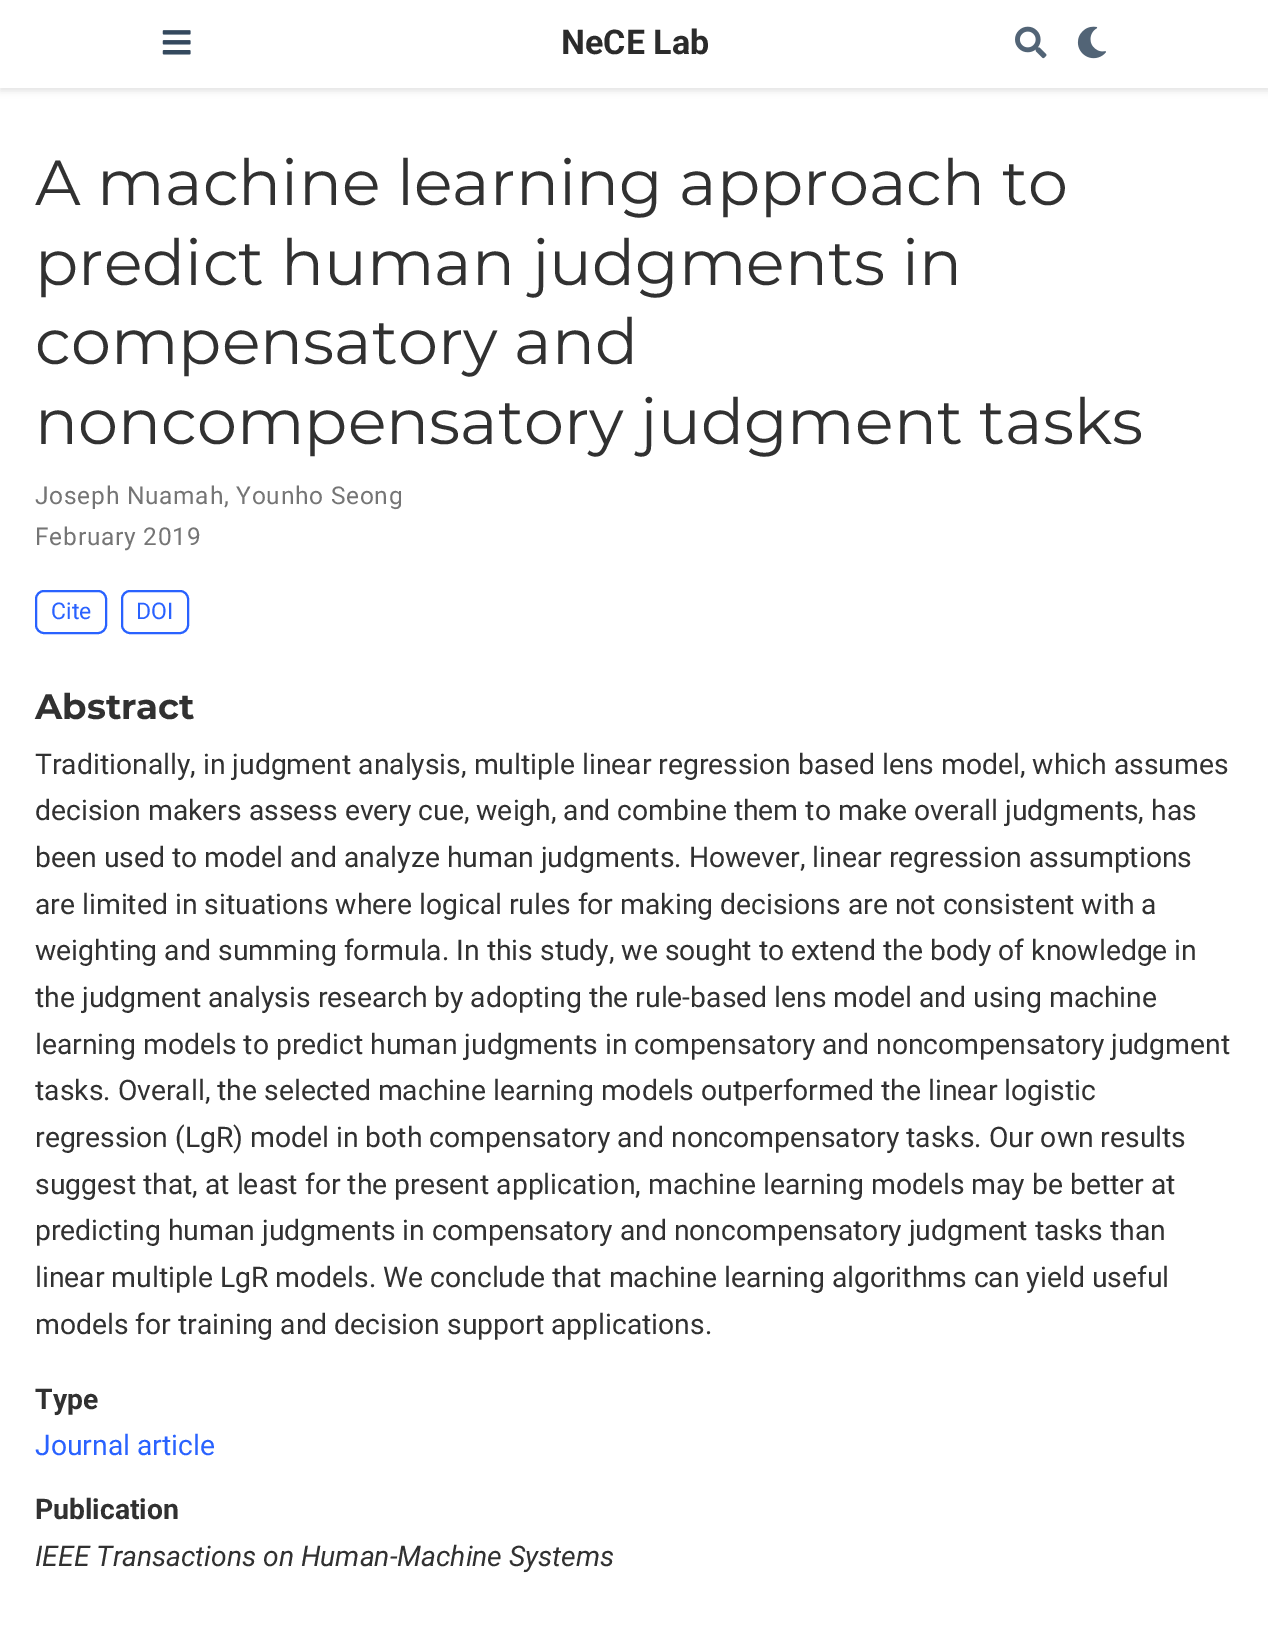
%!PS-Adobe-3.0
%%BoundingBox: 0 0 1268 1630
%%LanguageLevel: 3
%%Pages: 1
%%EndComments
%%BeginProlog
/m { moveto } bind def
/S { stroke } bind def
/w { setlinewidth } bind def
/fn { [ exch dup neg 0 0 3 -1 roll 0 0 ] selectfont } def
/tx { moveto show } def
/bx { rectfill } def
/al { dup .setfillconstantalpha .setstrokeconstantalpha } def
/rr { 5 dict begin { /r /h /w /y /x } { exch def } forall
  x r add y moveto x w add y 2 copy h add r arct x w add y h add x 1 index r arct
  x y h add x y r arct x y 2 copy exch w add exch r arct closepath end } def
/sh { 12 dict begin { /a /b /q /h /w /y /x } { exch def } forall gsave /was 0 def
  9 -2 -9 { dup b mul 4 div /e exch def 1 sub .425 mul 2.718 exch exp 1 add a .99 .min exch div /now exch def
    1 1 now sub 1 was sub div sub al /was now def
    w h .min e 2 mul add 0 gt { x e sub y e sub w e 2 mul add h e 2 mul add
      q e add b .6 mul add w h .min 2 div e add .min 0 .max rr fill } if } for grestore end } def
/im { 5 dict begin { /h /w /y /x /name } { exch def } forall
  gsave x y translate w h scale
  w h 8 [w 0 0 h 0 0] name (r) file false 3 colorimage grestore end } def
%%EndProlog
%%BeginSetup
<< /PageSize [1268 1630] /PageUsesTransparency true >> setpagedevice
%%EndSetup
%%Page: 1 1
0 .pushpdf14devicefilter
0 1630 translate 1 -1 scale
4 setmiterlimit
1 setgray
0 0 1268 1630 bx
0 setgray
0 4 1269 87 0 3.5 0.11 sh
1 setgray
0 0 1268 88 bx
(image0.raw) 162 30 29 25 im
/Roboto-Bold 34 fn
0.169 setgray
(NeCE Lab) 561 54 tx
(image1.raw) 1015 26 32 33 im
(image2.raw) 1077 26 29 33 im
/Montserrat-Regular 63.7 fn
0.192 setgray
(A machine learning approach to) 35 205 tx
(predict human judgments in) 35 285 tx
(compensatory and) 35 364 tx
(noncompensatory judgment tasks) 35 444 tx
/Roboto-Regular 24.5 fn
0.459 setgray
35 504 m 0.75 0 (Joseph Nuamah, Younho Seong) ashow
35 545 m 0.75 0 (February 2019) ashow
0.161 0.384 1 setrgbcolor
2 w
36 591 70 42 8 rr S
/Roboto-Regular 23 fn
(Cite) 51 619 tx
122 591 66 42 8 rr S
(DOI) 136 619 tx
/Montserrat-Bold 35.5 fn
0.192 setgray
(Abstract) 35 719 tx
/Roboto-Regular 28.3 fn
(Traditionally, in judgment analysis, multiple linear regression based lens model, which assumes) 35 774 tx
(decision makers assess every cue, weigh, and combine them to make overall judgments, has) 35 820 tx
(been used to model and analyze human judgments. However, linear regression assumptions) 35 867 tx
(are limited in situations where logical rules for making decisions are not consistent with a) 35 914 tx
(weighting and summing formula. In this study, we sought to extend the body of knowledge in) 35 960 tx
(the judgment analysis research by adopting the rule-based lens model and using machine) 35 1007 tx
(learning models to predict human judgments in compensatory and noncompensatory judgment) 35 1054 tx
(tasks. Overall, the selected machine learning models outperformed the linear logistic) 35 1100 tx
(regression \(LgR\) model in both compensatory and noncompensatory tasks. Our own results) 35 1147 tx
(suggest that, at least for the present application, machine learning models may be better at) 35 1194 tx
(predicting human judgments in compensatory and noncompensatory judgment tasks than) 35 1240 tx
(linear multiple LgR models. We conclude that machine learning algorithms can yield useful) 35 1287 tx
(models for training and decision support applications.) 35 1334 tx
/Roboto-Bold 28.3 fn
(Type) 35 1409 tx
/Roboto-Regular 28.3 fn
0.161 0.384 1 setrgbcolor
(Journal article) 35 1455 tx
/Roboto-Bold 28.3 fn
0.192 setgray
(Publication) 35 1519 tx
/Roboto-Italic 28.3 fn
(IEEE Transactions on Human-Machine Systems) 35 1566 tx
.poppdf14devicefilter showpage
%%EOF
